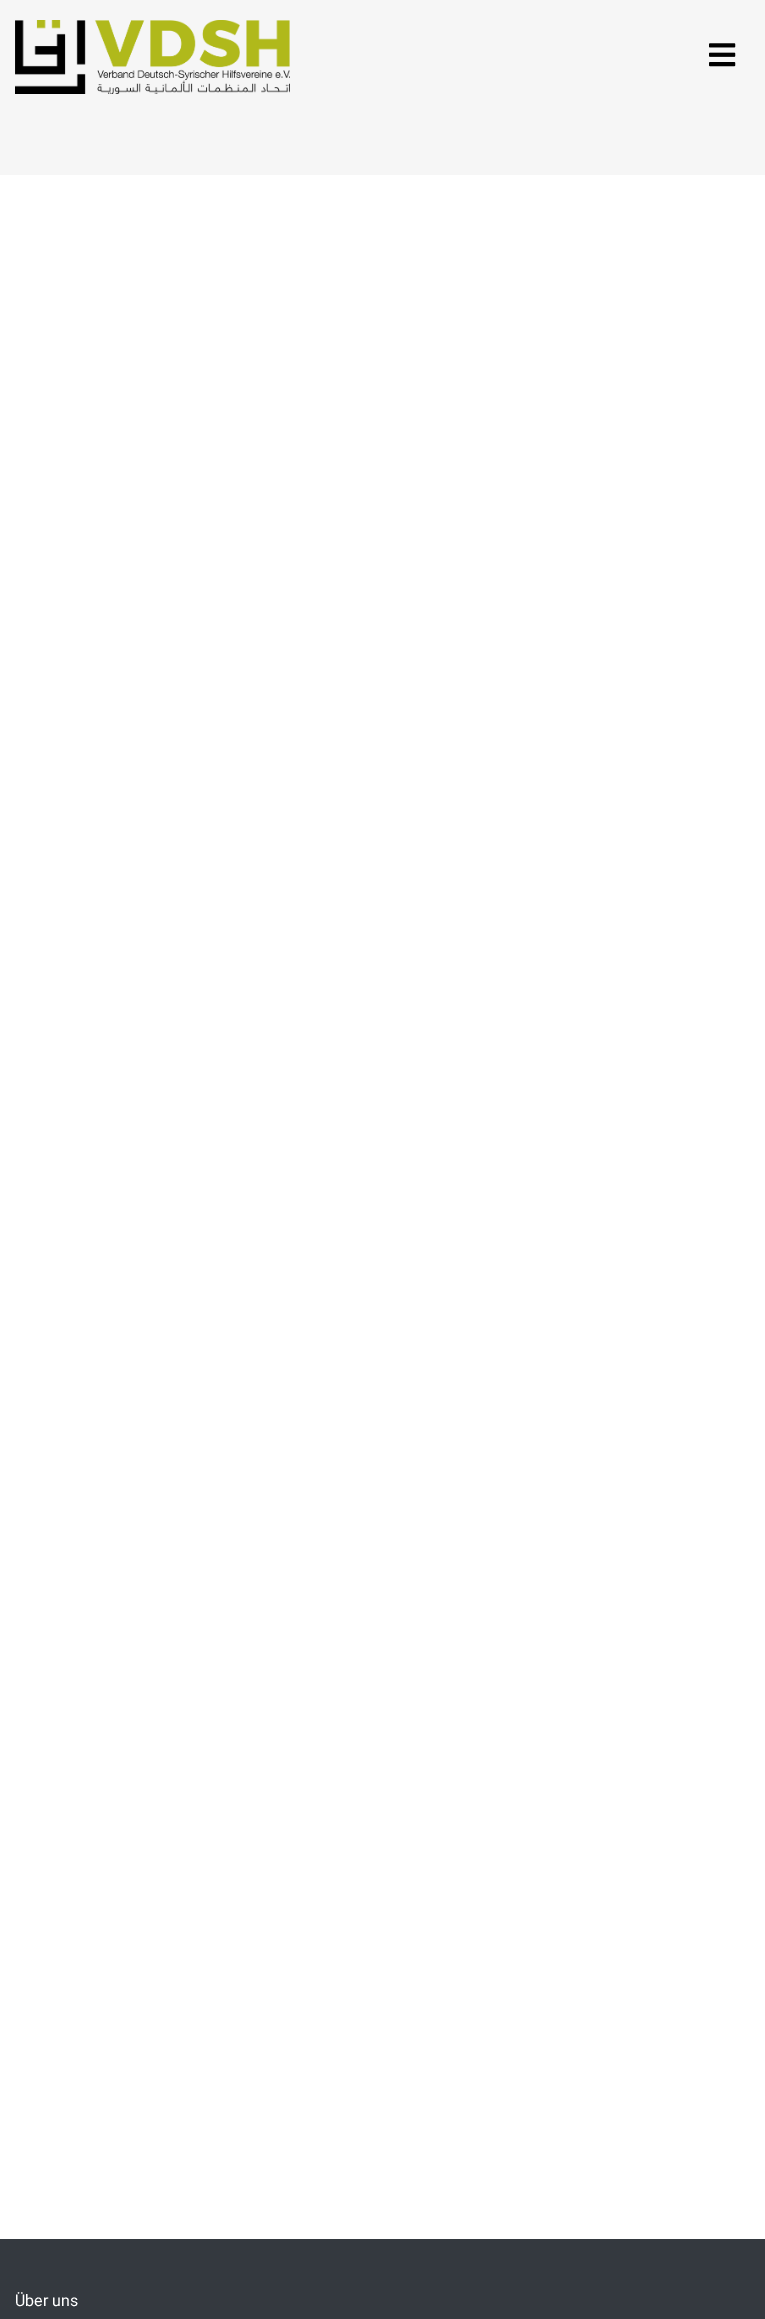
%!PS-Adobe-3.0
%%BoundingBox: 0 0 765 2319
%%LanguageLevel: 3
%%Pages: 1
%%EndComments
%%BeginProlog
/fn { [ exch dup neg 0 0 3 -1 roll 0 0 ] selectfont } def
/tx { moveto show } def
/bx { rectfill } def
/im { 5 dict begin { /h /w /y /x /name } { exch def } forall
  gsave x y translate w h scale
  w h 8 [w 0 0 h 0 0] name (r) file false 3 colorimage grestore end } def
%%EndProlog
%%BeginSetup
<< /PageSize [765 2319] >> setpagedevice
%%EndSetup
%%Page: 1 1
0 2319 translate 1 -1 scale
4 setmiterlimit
1 setgray
0 0 765 2319 bx
0.965 setgray
0 0 765 175 bx
(image0.raw) 15 20 275 74 im
(image1.raw) 709 43 27 24 im
0.204 0.224 0.247 setrgbcolor
0 2239 765 80 bx
/Roboto-Regular 16 fn
1 setgray
(Über uns) 15 2306 tx
showpage
%%EOF
